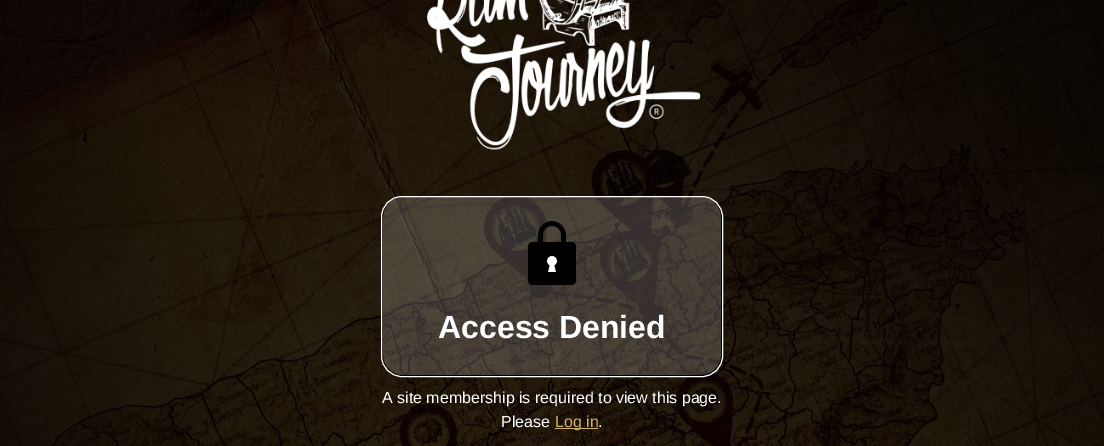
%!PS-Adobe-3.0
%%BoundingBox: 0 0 1104 446
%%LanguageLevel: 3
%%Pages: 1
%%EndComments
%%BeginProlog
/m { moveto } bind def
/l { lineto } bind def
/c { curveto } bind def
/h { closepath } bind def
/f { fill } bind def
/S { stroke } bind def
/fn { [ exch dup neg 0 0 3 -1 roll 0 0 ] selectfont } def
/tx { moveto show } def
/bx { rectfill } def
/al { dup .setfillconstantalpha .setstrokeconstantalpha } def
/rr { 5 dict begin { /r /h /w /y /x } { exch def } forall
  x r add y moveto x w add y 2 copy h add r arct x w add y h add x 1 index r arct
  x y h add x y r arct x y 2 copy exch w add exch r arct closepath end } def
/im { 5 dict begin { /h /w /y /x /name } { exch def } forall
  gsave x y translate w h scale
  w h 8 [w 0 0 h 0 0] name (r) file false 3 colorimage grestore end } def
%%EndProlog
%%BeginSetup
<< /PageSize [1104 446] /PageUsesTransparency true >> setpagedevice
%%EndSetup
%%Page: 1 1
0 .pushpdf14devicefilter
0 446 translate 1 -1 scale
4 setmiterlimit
1 setgray
0 0 1104 446 bx
(image0.raw) 0 0 1104 446 im
(image1.raw) 427 0 274 150 im
0.18 al
382 197 340 179 20 rr f
1 al
0 setgray
402 197 m 702 197 l 713 197 722 206 722 217 c 722 356 l 722 367 713 376 702 376 c 402 376 l 391 376 382 367 382 356 c 382 217 l 382 206 391 197 402 197 c h 402 197 m 702 197 l 712 197 721 206 721 217 c 721 356 l 721 366 712 375 702 375 c 402 375 l 392 375 383 366 383 356 c 383 217 l 383 206 392 197 402 197 c h eofill
(image2.raw) 528 221 48 64 im
1 setgray
381.5 196.5 341 180 20.5 rr S
/LiberationSans-Bold 32 fn
(Access Denied) 438 338 tx
/LiberationSans-Regular 16 fn
(A site membership is required to view this page.) 382 403 tx
(Please) 501 427 tx
0.824 0.698 0.416 setrgbcolor
555 428 43 1 bx
(Log in) 555 427 tx
1 setgray
(.) 598 427 tx
.poppdf14devicefilter showpage
%%EOF
